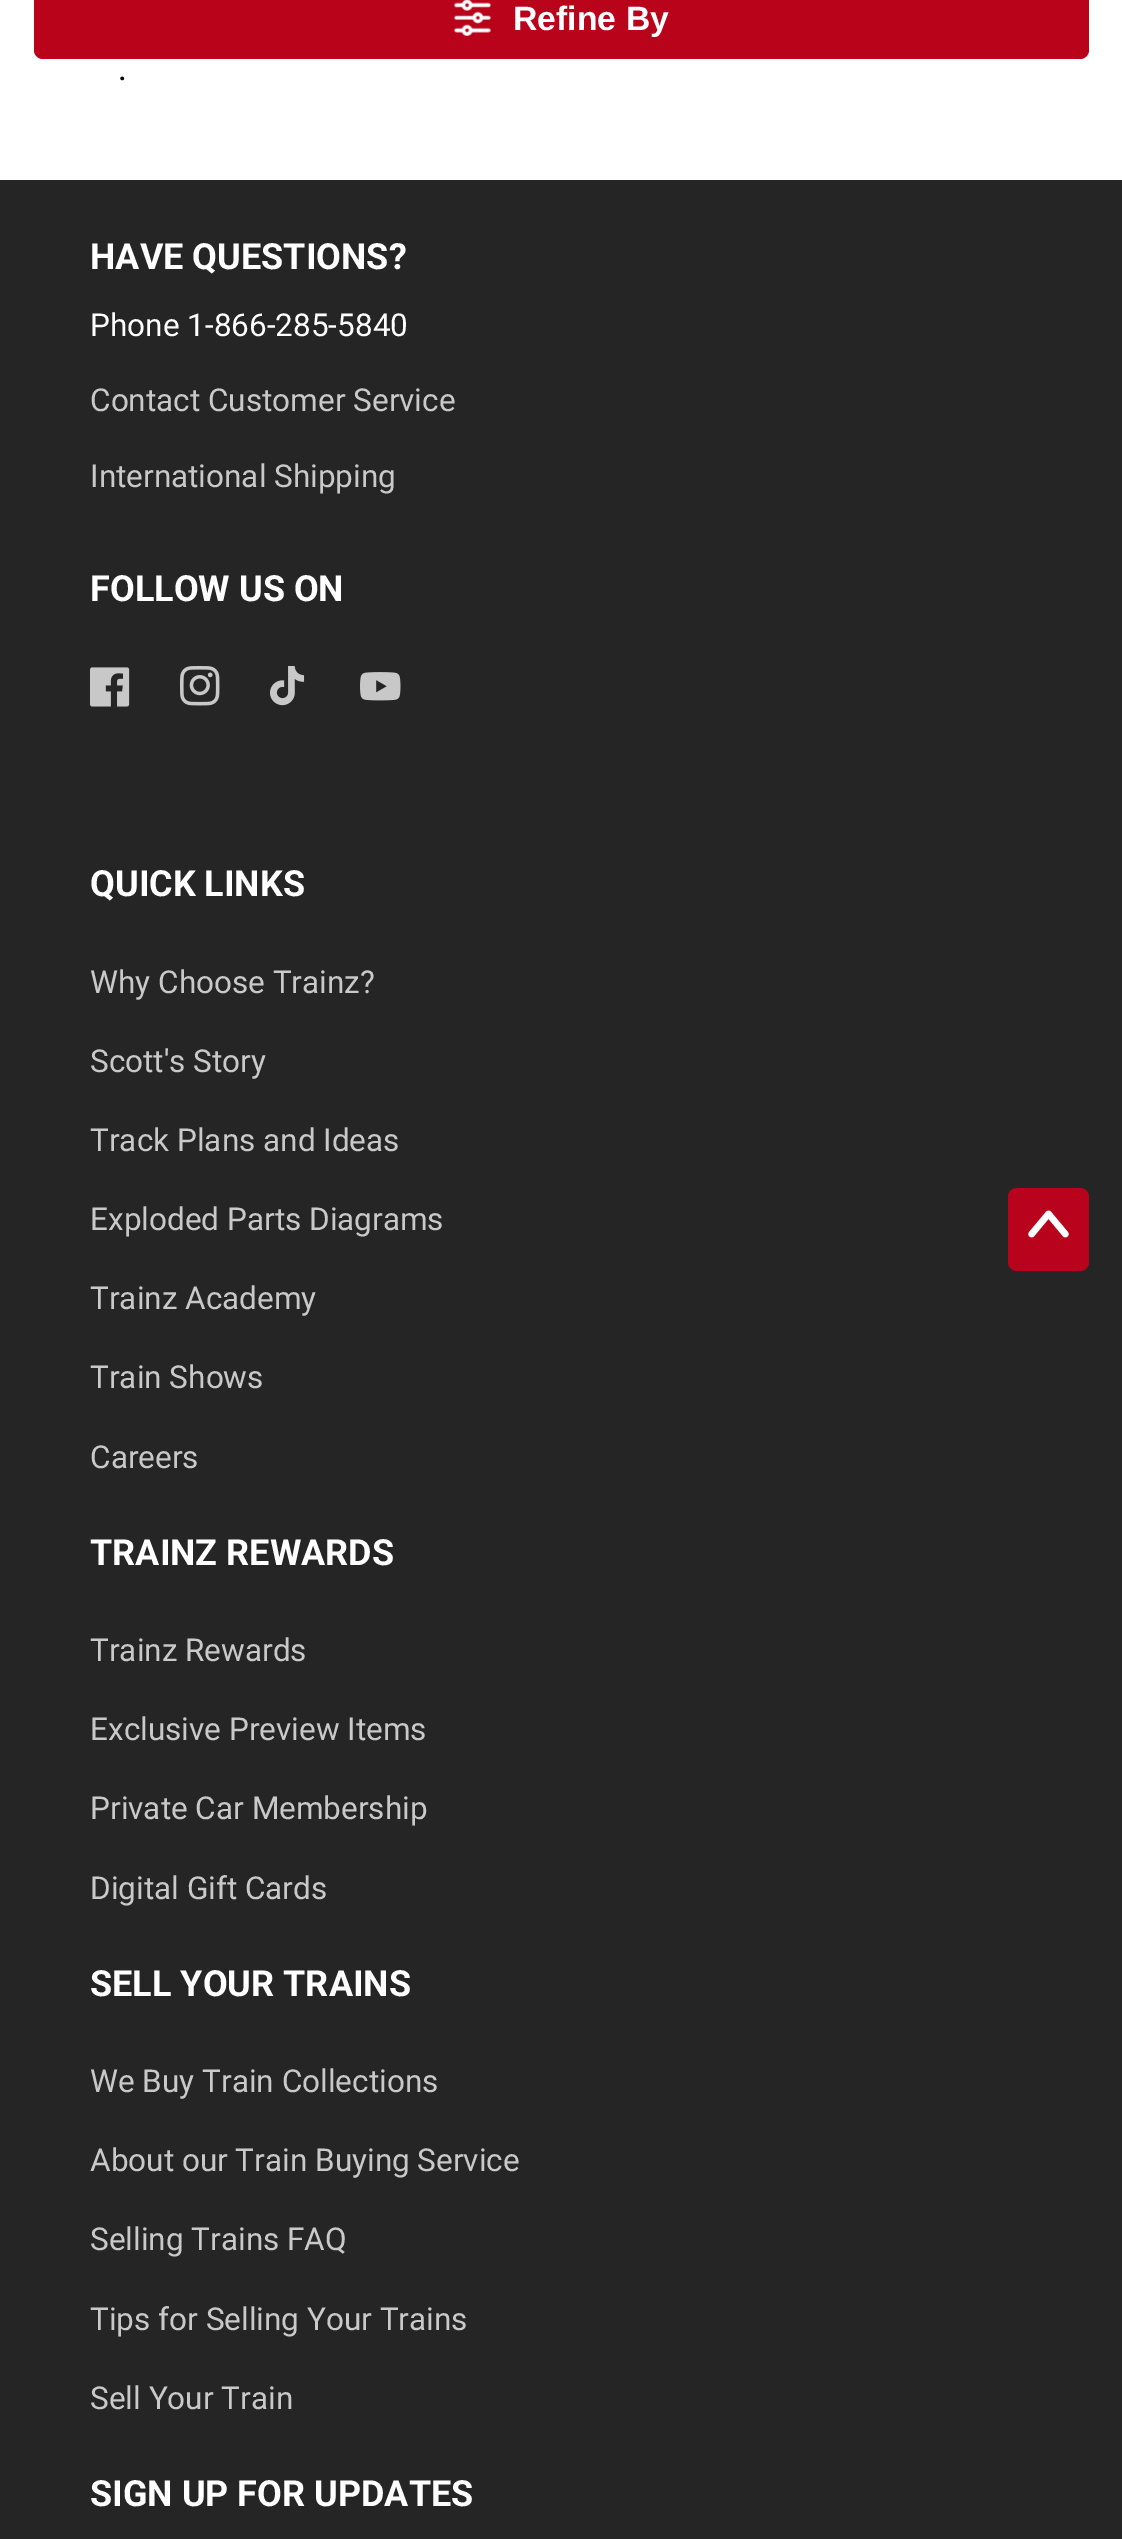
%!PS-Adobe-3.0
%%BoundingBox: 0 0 1122 2539
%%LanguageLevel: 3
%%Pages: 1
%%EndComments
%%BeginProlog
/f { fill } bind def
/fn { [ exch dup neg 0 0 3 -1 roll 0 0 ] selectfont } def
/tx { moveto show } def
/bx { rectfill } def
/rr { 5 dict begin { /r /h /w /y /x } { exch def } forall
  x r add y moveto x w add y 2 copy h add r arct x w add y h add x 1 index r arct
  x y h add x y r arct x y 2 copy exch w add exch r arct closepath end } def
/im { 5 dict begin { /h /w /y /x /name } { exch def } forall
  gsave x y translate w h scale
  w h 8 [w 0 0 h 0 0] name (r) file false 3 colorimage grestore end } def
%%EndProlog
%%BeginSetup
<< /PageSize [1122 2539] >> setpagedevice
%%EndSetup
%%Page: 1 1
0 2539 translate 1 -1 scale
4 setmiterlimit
1 setgray
0 0 1122 2539 bx
0.725 0.012 0.106 setrgbcolor
34 -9 1055 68 9 rr f
(image0.raw) 454 0 37 36 im
/LiberationSans-Bold 33.75 fn
1 setgray
(Refine By) 513 30 tx
/Roboto-Regular 33.75 fn
0 setgray
(.) 118 80 tx
0.145 setgray
0 180 1122 2359 bx
/Roboto-Bold 36 fn
1 setgray
(HAVE QUESTIONS?) 90 269 tx
/Roboto-Regular 31.5 fn
(Phone 1-866-285-5840) 90 336 tx
0.788 setgray
(Contact Customer Service) 90 411 tx
(International Shipping) 90 487 tx
/Roboto-Bold 36 fn
1 setgray
(FOLLOW US ON) 90 601 tx
(image1.raw) 90 667 40 40 im
(image2.raw) 180 666 40 40 im
(image3.raw) 270 666 35 40 im
(image4.raw) 360 672 41 29 im
(QUICK LINKS) 90 896 tx
/Roboto-Regular 31.5 fn
0.788 setgray
(Why Choose Trainz?) 90 993 tx
(Scott's Story) 90 1072 tx
(Track Plans and Ideas) 90 1151 tx
(Exploded Parts Diagrams) 90 1230 tx
(Trainz Academy) 90 1309 tx
(Train Shows) 90 1388 tx
(Careers) 90 1468 tx
/Roboto-Bold 36 fn
1 setgray
(TRAINZ REWARDS) 90 1565 tx
/Roboto-Regular 31.5 fn
0.788 setgray
(Trainz Rewards) 90 1661 tx
(Exclusive Preview Items) 90 1740 tx
(Private Car Membership) 90 1819 tx
(Digital Gift Cards) 90 1899 tx
/Roboto-Bold 36 fn
1 setgray
(SELL YOUR TRAINS) 90 1996 tx
/Roboto-Regular 31.5 fn
0.788 setgray
(We Buy Train Collections) 90 2092 tx
(About our Train Buying Service) 90 2171 tx
(Selling Trains FAQ) 90 2250 tx
(Tips for Selling Your Trains) 90 2330 tx
(Sell Your Train) 90 2409 tx
/Roboto-Bold 36 fn
1 setgray
(SIGN UP FOR UPDATES) 90 2506 tx
0.725 0.012 0.11 setrgbcolor
1008 1188 81 83 9 rr f
(image5.raw) 1028 1210 41 28 im
showpage
%%EOF
